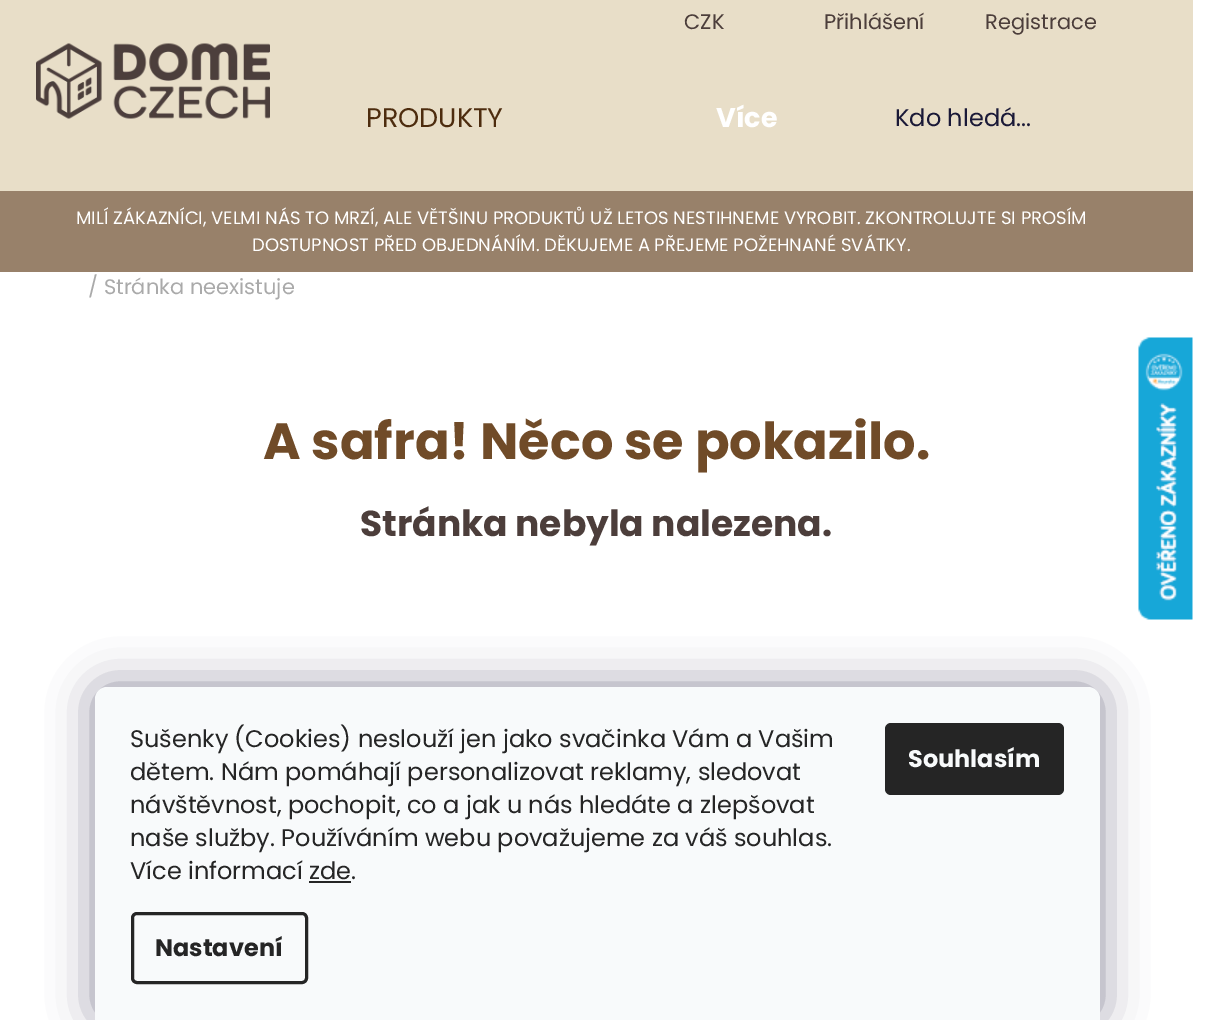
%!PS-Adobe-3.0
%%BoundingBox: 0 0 1214 1020
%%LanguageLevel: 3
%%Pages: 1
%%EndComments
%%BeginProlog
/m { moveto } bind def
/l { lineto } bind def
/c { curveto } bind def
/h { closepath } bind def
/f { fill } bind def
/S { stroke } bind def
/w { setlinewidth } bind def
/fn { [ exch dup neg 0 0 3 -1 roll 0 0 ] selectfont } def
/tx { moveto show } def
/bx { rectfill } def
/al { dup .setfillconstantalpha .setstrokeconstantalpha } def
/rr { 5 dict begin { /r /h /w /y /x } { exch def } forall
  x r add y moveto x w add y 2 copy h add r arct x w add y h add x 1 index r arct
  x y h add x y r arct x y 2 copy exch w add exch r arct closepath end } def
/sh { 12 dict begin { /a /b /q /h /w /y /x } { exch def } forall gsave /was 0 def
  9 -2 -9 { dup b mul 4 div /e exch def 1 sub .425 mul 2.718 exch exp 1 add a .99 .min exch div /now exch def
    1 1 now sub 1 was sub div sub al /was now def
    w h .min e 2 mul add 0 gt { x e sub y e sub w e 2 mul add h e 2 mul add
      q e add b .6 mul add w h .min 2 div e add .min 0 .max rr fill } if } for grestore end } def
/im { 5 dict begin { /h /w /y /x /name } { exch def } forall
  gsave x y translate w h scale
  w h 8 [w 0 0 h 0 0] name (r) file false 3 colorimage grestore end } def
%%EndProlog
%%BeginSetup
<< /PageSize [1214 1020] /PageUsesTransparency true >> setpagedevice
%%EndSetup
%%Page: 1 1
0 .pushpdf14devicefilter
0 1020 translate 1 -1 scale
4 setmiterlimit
1 setgray
0 0 1214 1020 bx
0.91 0.871 0.784 setrgbcolor
0 0 1193 191 bx
/Poppins-Regular 21 fn
0.298 0.243 0.231 setrgbcolor
(CZK) 684 29 tx
(Přihlášení) 824 29 tx
(Registrace) 985 29 tx
(image0.raw) 36 43 234 76 im
/Poppins-Regular 27 fn
0.302 0.173 0.055 setrgbcolor
(PRODUKTY) 366 127 tx
/Poppins-Bold 27 fn
1 setgray
(Více) 716 127 tx
/Poppins-Regular 24 fn
0.102 0.098 0.216 setrgbcolor
(Kdo hledá...) 895 126 tx
0.596 0.506 0.416 setrgbcolor
0 191 1193 81 bx
/Poppins-Regular 18 fn
1 setgray
(MILÍ ZÁKAZNÍCI, VELMI NÁS TO MRZÍ, ALE VĚTŠINU PRODUKTŮ UŽ LETOS NESTIHNEME VYROBIT. ZKONTROLUJTE SI PROSÍM) 76 224 tx
(DOSTUPNOST PŘED OBJEDNÁNÍM. DĚKUJEME A PŘEJEME POŽEHNANÉ SVÁTKY.) 252 251 tx
/Poppins-Regular 21 fn
0.667 setgray
(/ Stránka neexistuje) 88 294 tx
/Poppins-Bold 51 fn
0.439 0.294 0.157 setrgbcolor
(A safra! Něco se pokazilo.) 263 459 tx
/Poppins-Bold 36 fn
0.298 0.243 0.231 setrgbcolor
(Stránka nebyla nalezena.) 360 536 tx
0.106 0.098 0.224 setrgbcolor
95 687 1005 333 12 22.5 0.5 sh
(image1.raw) 1138 337 55 283 im
0.973 0.98 0.984 setrgbcolor
107 687 m 1088 687 l 1094.5 687 1100 692.5 1100 699 c 1100 1020 l 95 1020 l 95 699 l 95 692.5 100.5 687 107 687 c h f
/Poppins-Regular 24 fn
0.145 setgray
(Sušenky \(Cookies\) neslouží jen jako svačinka Vám a Vašim) 130 747 tx
(dětem. Nám pomáhají personalizovat reklamy, sledovat) 130 780 tx
(návštěvnost, pochopit, co a jak u nás hledáte a zlepšovat) 130 813 tx
(naše služby. Používáním webu považujeme za váš souhlas.) 130 846 tx
(Více informací zde.) 130 879 tx
309 881 42 2 bx
3 w
132.5 913.5 174 69 4.5 rr S
/Poppins-Bold 24 fn
(Nastavení) 155 956 tx
885 723 179 72 6 rr f
0.973 0.98 0.984 setrgbcolor
(Souhlasím) 908 767 tx
.poppdf14devicefilter showpage
%%EOF
